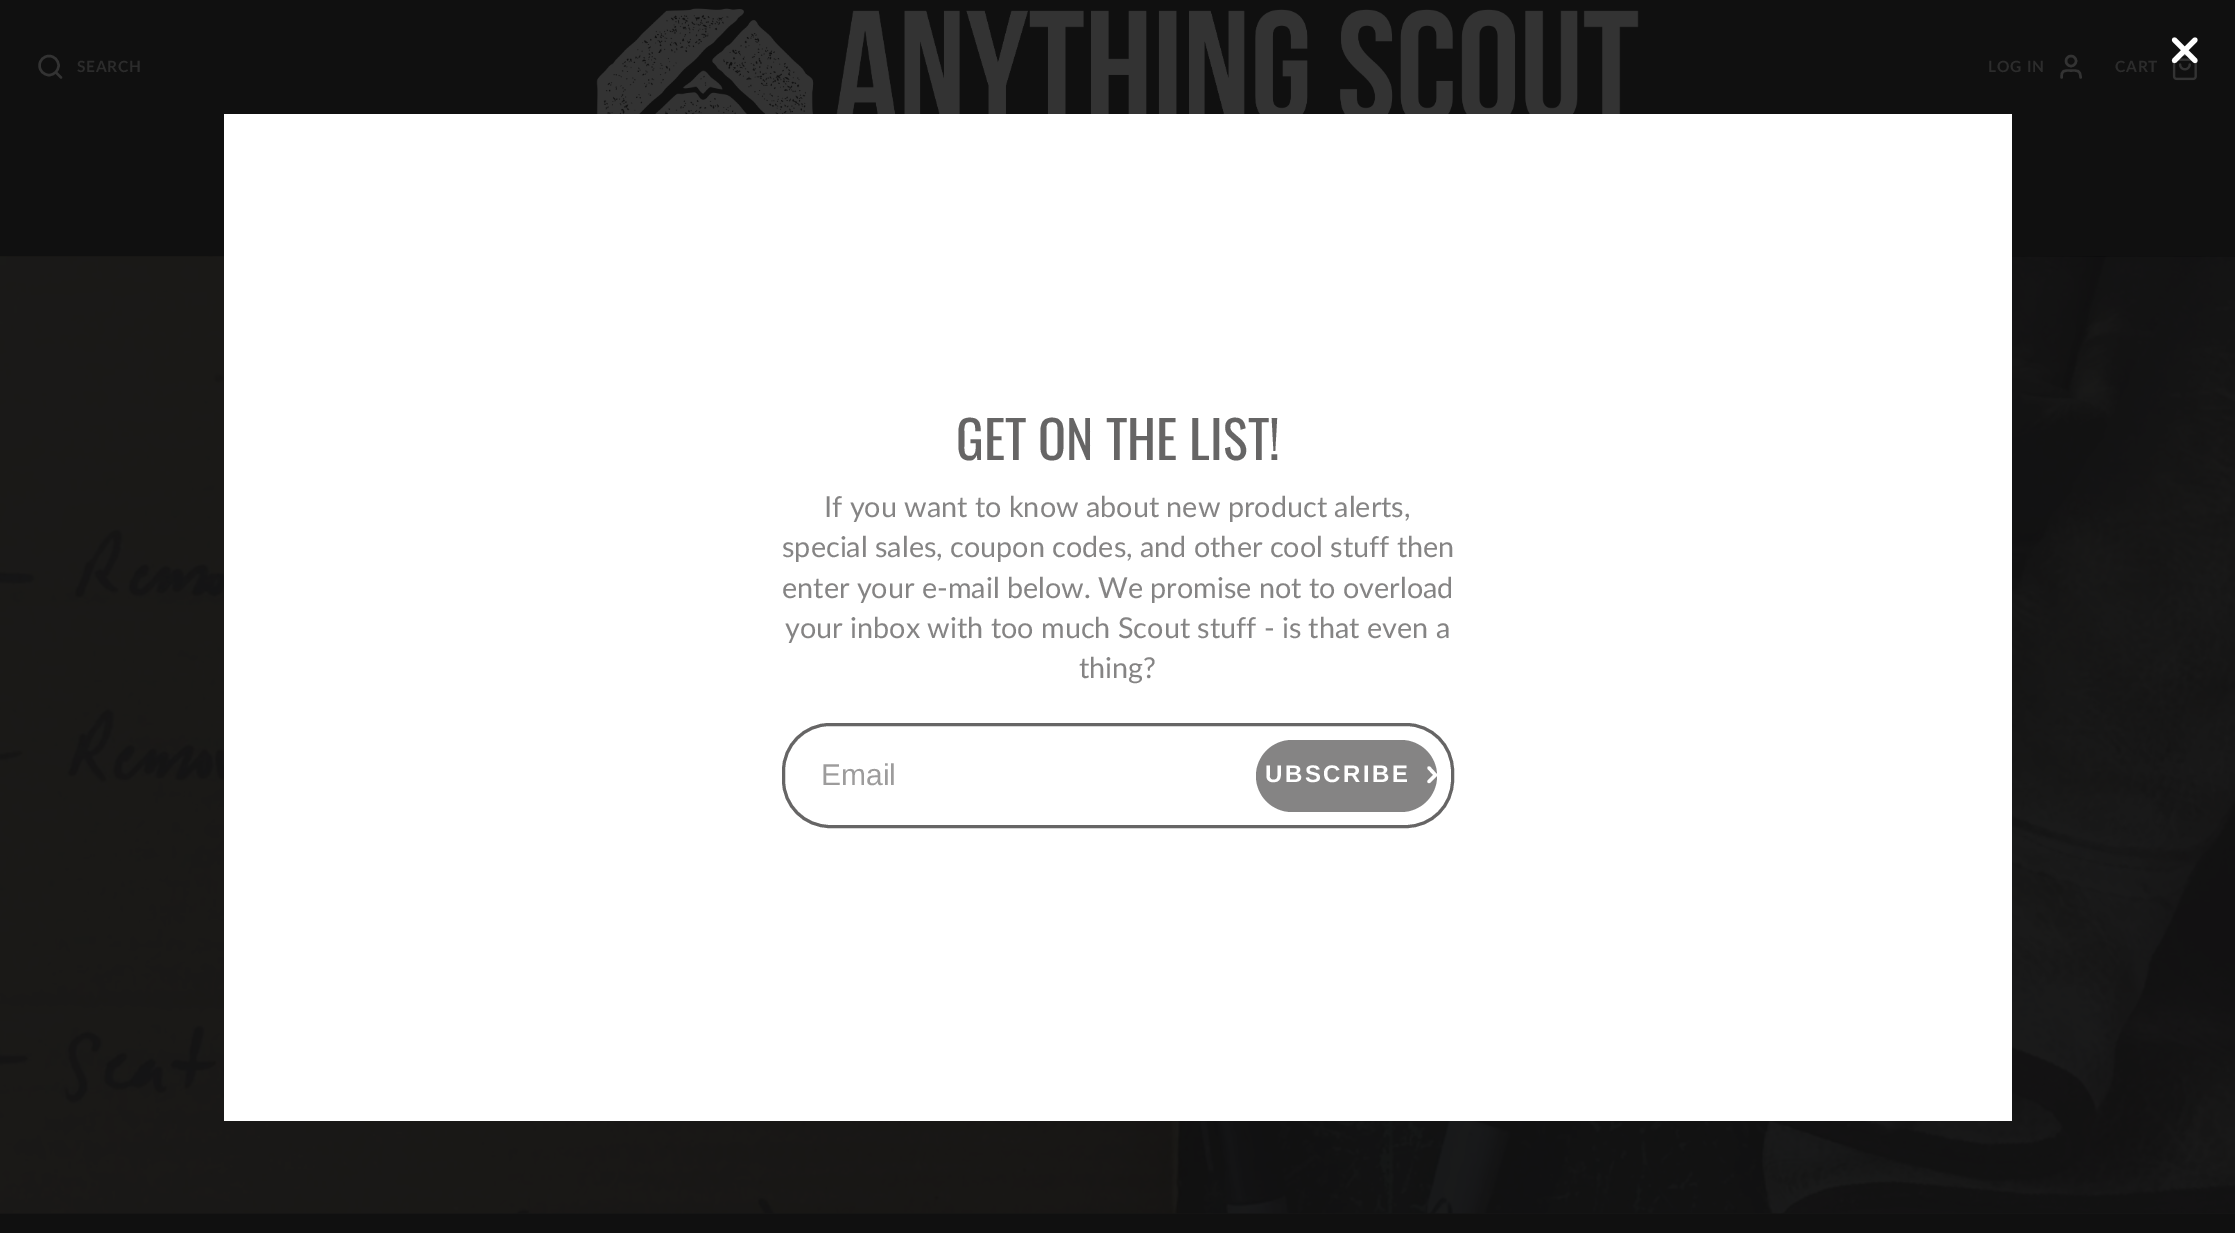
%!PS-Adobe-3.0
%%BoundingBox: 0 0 2235 1233
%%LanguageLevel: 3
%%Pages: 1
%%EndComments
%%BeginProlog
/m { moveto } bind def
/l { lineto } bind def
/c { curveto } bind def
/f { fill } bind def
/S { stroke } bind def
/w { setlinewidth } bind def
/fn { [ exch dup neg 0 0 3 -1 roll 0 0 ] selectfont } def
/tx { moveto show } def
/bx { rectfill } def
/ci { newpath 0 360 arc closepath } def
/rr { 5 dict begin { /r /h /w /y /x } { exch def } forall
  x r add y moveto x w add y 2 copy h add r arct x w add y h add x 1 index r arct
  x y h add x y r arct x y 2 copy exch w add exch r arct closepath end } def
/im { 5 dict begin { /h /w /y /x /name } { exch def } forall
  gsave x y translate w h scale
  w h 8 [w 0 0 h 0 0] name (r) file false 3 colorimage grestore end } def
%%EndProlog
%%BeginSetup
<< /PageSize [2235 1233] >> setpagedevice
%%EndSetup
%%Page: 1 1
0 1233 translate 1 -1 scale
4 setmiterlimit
0.063 setgray
0 0 2235 1233 bx
0.2 setgray
2.4 w
49 65.5 9.5 ci S
1 setlinecap
1 setlinejoin
61 77.5 m 56 72.5 l S
/Lato-Bold 15.5 fn
0.173 setgray
77 72 m 0.75 0 (SEARCH) ashow
(image0.raw) 596 8 1043 106 im
1988 72 m 0.75 0 (LOG IN) ashow
0.2 setgray
0 setlinecap
0 setlinejoin
2071 61 5 ci S
1 setlinecap
1 setlinejoin
2080.5 77.5 m 2080.5 70 2077.5 70.5 2071 70.5 c 2064 70.5 2061.5 70 2061.5 77.5 c S
0.173 setgray
2115 72 m 0.75 0 (CART) ashow
(image1.raw) 2172 53 25 28 im
0.078 setgray
0 1213 2235 1 bx
(image2.raw) 0 256 2235 958 im
1 setgray
5.1 w
2195 40 m 2174.5 60.5 l 2174.5 40 m 2195 60.5 l S
224 114 1788 1007 bx
/Oswald-Regular 52 fn
0.4 0.396 0.396 setrgbcolor
(GET ON THE LIST!) 956 460 tx
/Lato-Regular 28.8 fn
0.522 0.518 0.518 setrgbcolor
(If you want to know about new product alerts,) 824 517 tx
(special sales, coupon codes, and other cool stuff then) 782 557 tx
(enter your e-mail below. We promise not to overload) 782 598 tx
(your inbox with too much Scout stuff - is that even a) 785 638 tx
(thing?) 1079 678 tx
0.4 0.396 0.396 setrgbcolor
3 w
0 setlinecap
0 setlinejoin
783.5 724.5 669 102 46.5 rr S
/LiberationSans-Regular 30 fn
0.616 0.612 0.612 setrgbcolor
(Email) 821 785 tx
0.522 0.518 0.518 setrgbcolor
1256 740 181 72 36 rr f
/LiberationSans-Bold 24 fn
1 setgray
1265 782 m 2.5 0 (UBSCRIBE) ashow
3.3 w
1 setlinecap
1 setlinejoin
1429 781.5 m 1435.5 775 l 1429 768 l S
showpage
%%EOF
